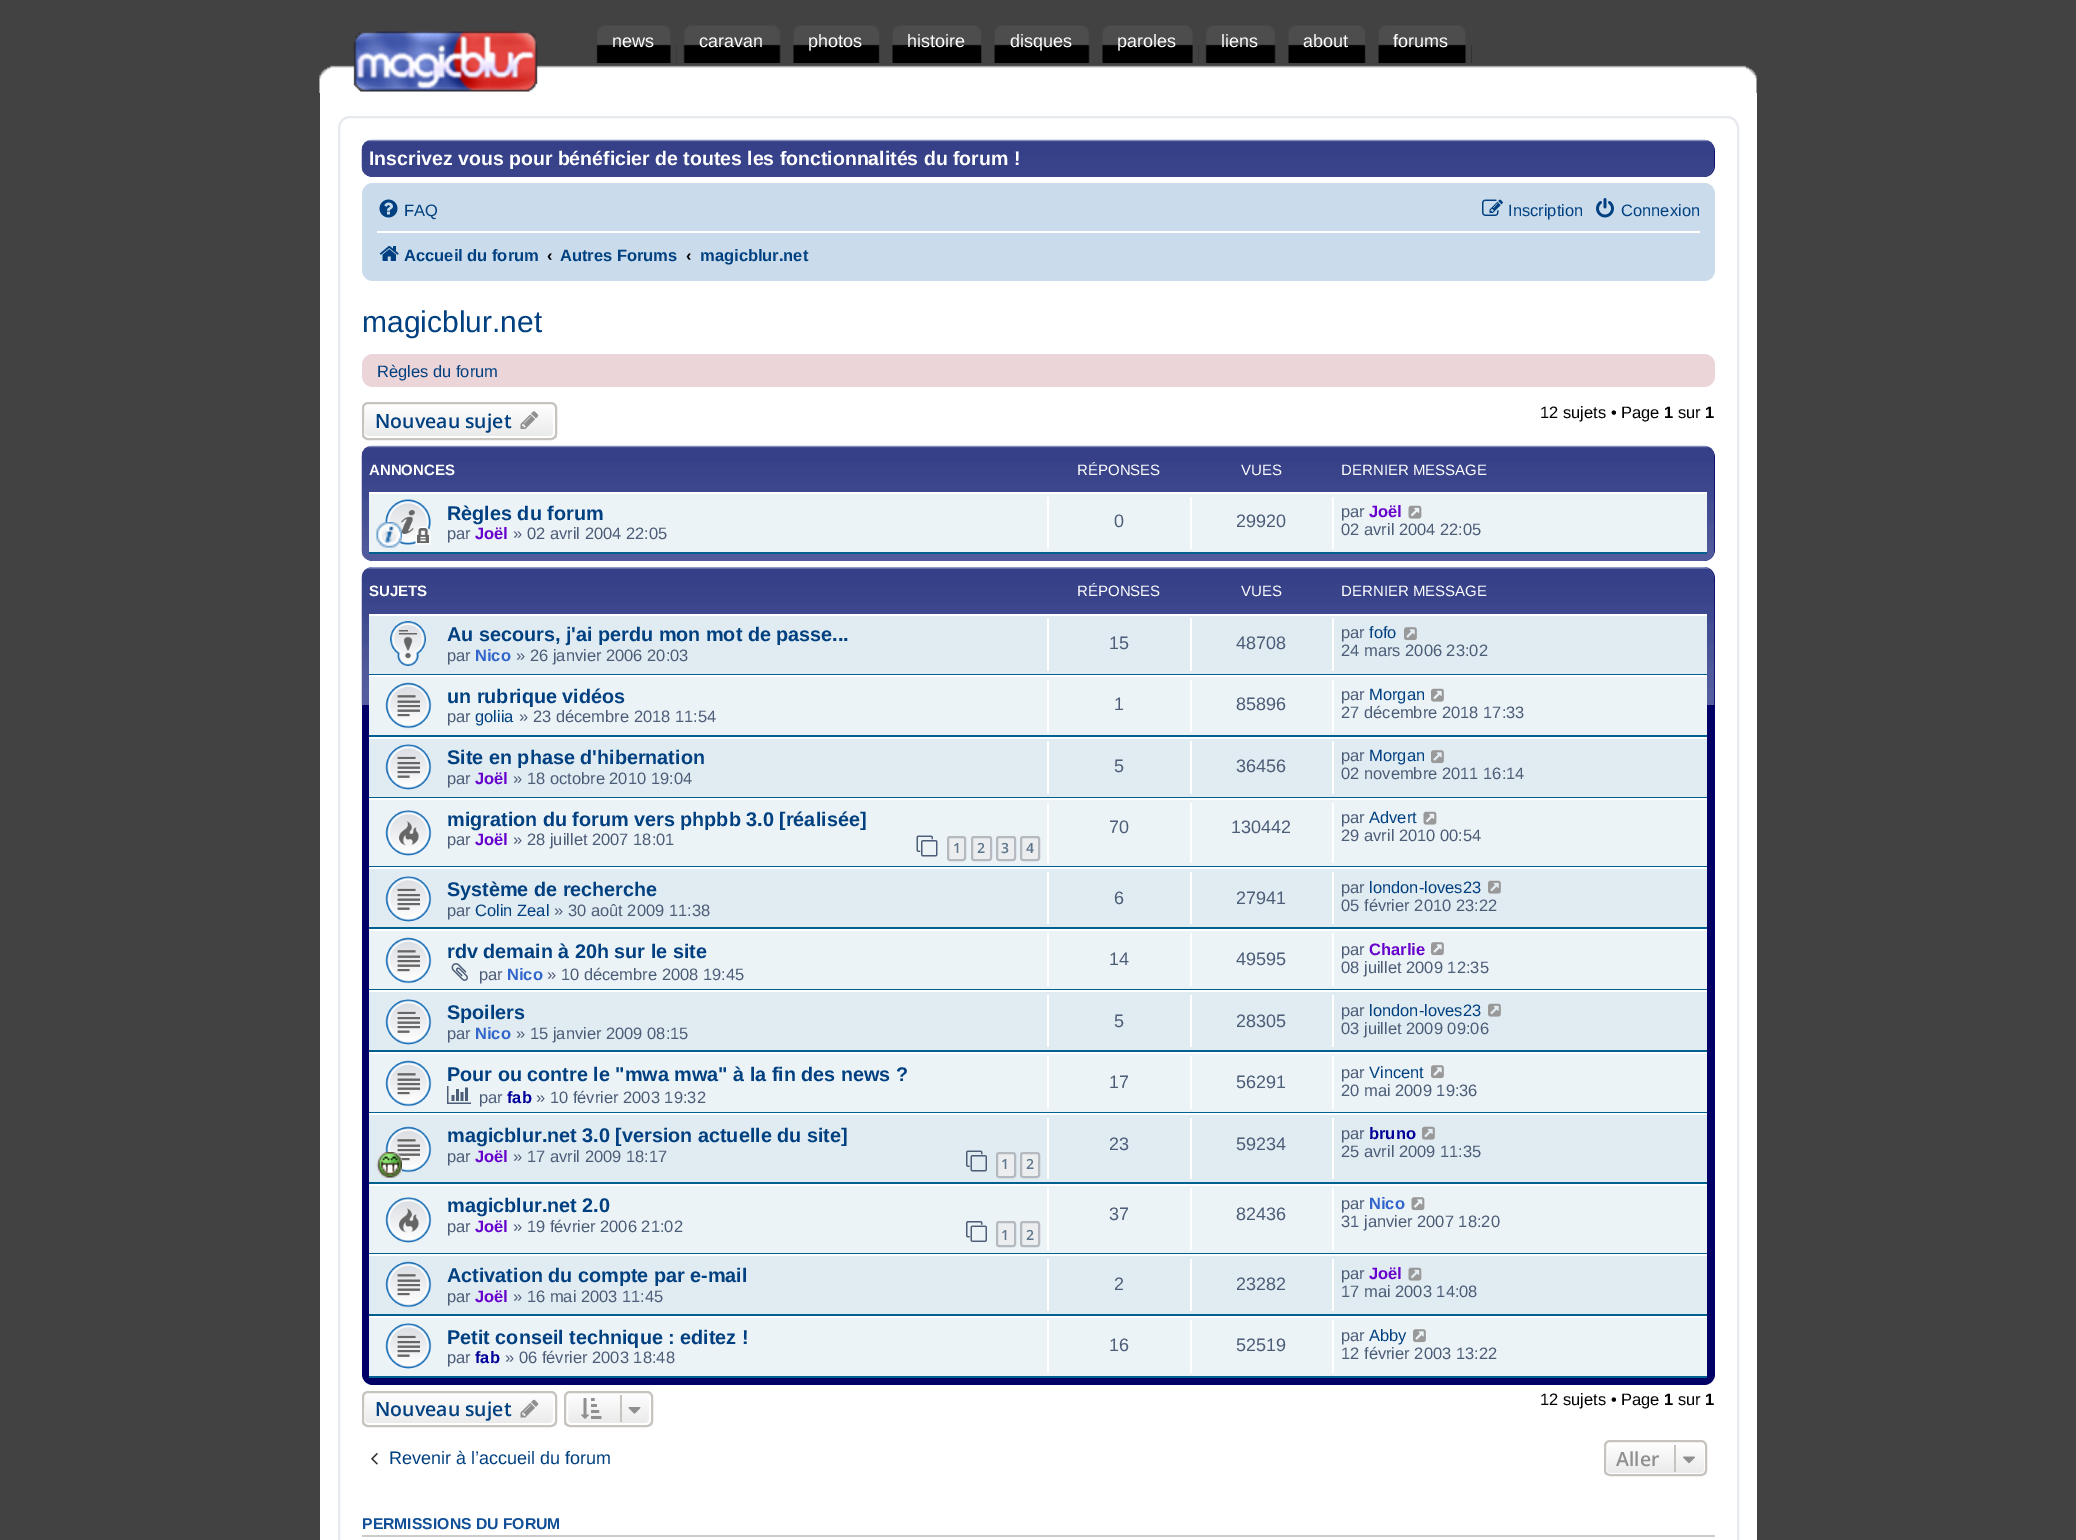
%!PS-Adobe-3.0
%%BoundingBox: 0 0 2076 1540
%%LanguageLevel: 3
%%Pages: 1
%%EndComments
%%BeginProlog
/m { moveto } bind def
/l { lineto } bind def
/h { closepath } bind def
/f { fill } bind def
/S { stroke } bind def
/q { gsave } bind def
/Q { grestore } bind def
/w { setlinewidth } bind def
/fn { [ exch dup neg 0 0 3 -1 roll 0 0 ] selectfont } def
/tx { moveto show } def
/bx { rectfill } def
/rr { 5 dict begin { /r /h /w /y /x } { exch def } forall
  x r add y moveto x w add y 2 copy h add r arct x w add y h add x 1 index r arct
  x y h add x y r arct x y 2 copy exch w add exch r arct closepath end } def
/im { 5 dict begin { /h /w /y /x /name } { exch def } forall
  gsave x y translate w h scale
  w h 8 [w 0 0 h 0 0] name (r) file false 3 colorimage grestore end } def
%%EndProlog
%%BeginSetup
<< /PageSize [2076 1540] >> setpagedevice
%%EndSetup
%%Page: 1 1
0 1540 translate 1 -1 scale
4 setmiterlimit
0.259 setgray
0 0 2076 1540 bx
(image0.raw) 319 31 1438 62 im
(image1.raw) 596 25 81 38 im
(image2.raw) 666 25 11 38 im
/LiberationSans-Regular 18 fn
1 setgray
(news) 612 47 tx
(image3.raw) 676 25 99 38 im
(image4.raw) 775 25 11 38 im
(caravan) 699 47 tx
(image5.raw) 793 25 81 38 im
(image6.raw) 874 25 11 38 im
(photos) 808 47 tx
(image7.raw) 892 25 84 38 im
(image8.raw) 976 25 11 38 im
(histoire) 907 47 tx
(image9.raw) 994 25 90 38 im
(image10.raw) 1084 25 11 38 im
(disques) 1010 47 tx
(image11.raw) 1102 25 97 38 im
(image12.raw) 1188 25 11 38 im
(paroles) 1117 47 tx
(image13.raw) 1198 25 72 38 im
(image10.raw) 1270 25 11 38 im
(liens) 1221 47 tx
(image14.raw) 1288 25 72 38 im
(image6.raw) 1360 25 11 38 im
(about) 1303 47 tx
(image15.raw) 1378 25 94 38 im
(image16.raw) 1461 25 11 38 im
(forums) 1393 47 tx
320 93 1437 1447 bx
0.902 0.914 0.929 setrgbcolor
2 w
339 117 1399 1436 11 rr S
0 0 0.4 setrgbcolor
362 140 1353 37 11 rr f
(image17.raw) 361 139 1354 38 im
/LiberationSans-Bold 19.5 fn
1 setgray
(Inscrivez vous pour bénéficier de toutes les fonctionnalités du forum !) 369 165 tx
0.792 0.863 0.922 setrgbcolor
362 183 1353 98 11 rr f
(image18.raw) 379 199 19 19 im
/LiberationSans-Regular 16.5 fn
0 0.251 0.502 setrgbcolor
(FAQ) 404 216 tx
(image19.raw) 1482 199 21 17 im
(Inscription) 1508 216 tx
(image20.raw) 1596 198 18 20 im
(Connexion) 1621 216 tx
1 setgray
377 231 1323 2 bx
(image21.raw) 379 246 20 15 im
/LiberationSans-Bold 16.5 fn
0 0.251 0.502 setrgbcolor
(Accueil du forum) 404 261 tx
0 setgray
(‹) 547 261 tx
0 0.251 0.502 setrgbcolor
(Autres Forums) 560 261 tx
0 setgray
(‹) 686 261 tx
0 0.251 0.502 setrgbcolor
(magicblur.net) 700 261 tx
/LiberationSans-Regular 30 fn
(magicblur.net) 362 332 tx
0.925 0.835 0.847 setrgbcolor
362 354 1353 33 11 rr f
/LiberationSans-Regular 16.5 fn
0 0.251 0.502 setrgbcolor
(Règles du forum) 377 377 tx
q
362 402 195 38 6 rr clip newpath
q 362 404 m 557 404 l 557 438 l 362 438 l h clip newpath
<< /ShadingType 2 /ColorSpace /DeviceRGB /Coords [459 404 459 438] /Extend [true true] /Function << /FunctionType 2 /Domain [0 1] /C0 [1 1 1] /C1 [0.914 0.914 0.914] /N 1 >> >> shfill Q
Q
1 setgray
364 405 190 32 4 rr S
0.78 0.765 0.749 setrgbcolor
363 403 193 36 5 rr S
/OpenSans-SemiBold 19.5 fn
0 0.251 0.502 setrgbcolor
(Nouveau sujet) 375 428 tx
(image22.raw) 520 411 19 18 im
/LiberationSans-Regular 16.5 fn
0 setgray
(12 sujets • Page) 1540 418 tx
/LiberationSans-Bold 16.5 fn
(1) 1664 418 tx
/LiberationSans-Regular 16.5 fn
(sur) 1678 418 tx
/LiberationSans-Bold 16.5 fn
(1) 1705 418 tx
0 0 0.4 setrgbcolor
362 446 1353 115 11 rr f
(image23.raw) 361 445 1354 116 im
/LiberationSans-Bold 15 fn
1 setgray
(ANNONCES) 369 475 tx
/LiberationSans-Regular 15 fn
(RÉPONSES) 1077 475 tx
(VUES) 1241 475 tx
(DERNIER MESSAGE) 1341 475 tx
0.925 0.953 0.969 setrgbcolor
369 494 1338 58 bx
1 setgray
369 492 1338 2 bx
0 0.376 0.561 setrgbcolor
369 552 1338 2 bx
(image24.raw) 385 499 46 46 im
(image25.raw) 376 522 26 26 im
/LiberationSans-Bold 19.8 fn
0 0.251 0.502 setrgbcolor
(Règles du forum) 447 520 tx
/LiberationSans-Regular 16.5 fn
0.298 0.365 0.467 setrgbcolor
(par) 447 539 tx
/LiberationSans-Bold 16.5 fn
0.4 0 0.8 setrgbcolor
(Joël) 475 539 tx
/LiberationSans-Regular 16.5 fn
0.298 0.365 0.467 setrgbcolor
(» 02 avril 2004 22:05) 513 539 tx
1 setgray
1047 497 2 52 bx
/LiberationSans-Regular 18 fn
0.298 0.365 0.467 setrgbcolor
(0) 1114 527 tx
1 setgray
1190 497 2 52 bx
0.298 0.365 0.467 setrgbcolor
(29920) 1236 527 tx
1 setgray
1332 497 2 52 bx
/LiberationSans-Regular 16.5 fn
0.298 0.365 0.467 setrgbcolor
(par) 1341 517 tx
/LiberationSans-Bold 16.5 fn
0.4 0 0.8 setrgbcolor
(Joël) 1369 517 tx
(image26.raw) 1408 505 14 14 im
/LiberationSans-Regular 16.5 fn
0.298 0.365 0.467 setrgbcolor
(02 avril 2004 22:05) 1341 535 tx
0 0 0.4 setrgbcolor
362 567 1353 818 11 rr f
(image27.raw) 361 567 1354 138 im
/LiberationSans-Bold 15 fn
1 setgray
(SUJETS) 369 596 tx
/LiberationSans-Regular 15 fn
(RÉPONSES) 1077 596 tx
(VUES) 1241 596 tx
(DERNIER MESSAGE) 1341 596 tx
0.882 0.922 0.949 setrgbcolor
369 616 1338 58 bx
1 setgray
369 614 1338 2 bx
0 0.376 0.561 setrgbcolor
369 674 1338 1 bx
(image28.raw) 390 621 36 45 im
/LiberationSans-Bold 19.8 fn
0 0.251 0.502 setrgbcolor
(Au secours, j'ai perdu mon mot de passe...) 447 641 tx
/LiberationSans-Regular 16.5 fn
0.298 0.365 0.467 setrgbcolor
(par) 447 661 tx
/LiberationSans-Bold 16.5 fn
0.2 0.4 0.8 setrgbcolor
(Nico) 475 661 tx
/LiberationSans-Regular 16.5 fn
0.298 0.365 0.467 setrgbcolor
(» 26 janvier 2006 20:03) 516 661 tx
1 setgray
1047 618 2 53 bx
/LiberationSans-Regular 18 fn
0.298 0.365 0.467 setrgbcolor
(15) 1109 649 tx
1 setgray
1190 618 2 53 bx
0.298 0.365 0.467 setrgbcolor
(48708) 1236 649 tx
1 setgray
1332 618 2 53 bx
/LiberationSans-Regular 16.5 fn
0.298 0.365 0.467 setrgbcolor
(par) 1341 638 tx
0 0.251 0.502 setrgbcolor
(fofo) 1369 638 tx
(image29.raw) 1404 627 13 14 im
0.298 0.365 0.467 setrgbcolor
(24 mars 2006 23:02) 1341 656 tx
0.925 0.953 0.969 setrgbcolor
369 677 1338 58 bx
1 setgray
369 675 1338 2 bx
0 0.376 0.561 setrgbcolor
369 735 1338 2 bx
(image30.raw) 385 682 47 47 im
/LiberationSans-Bold 19.8 fn
0 0.251 0.502 setrgbcolor
(un rubrique vidéos) 447 703 tx
/LiberationSans-Regular 16.5 fn
0.298 0.365 0.467 setrgbcolor
(par) 447 722 tx
0 0.251 0.502 setrgbcolor
(goliia) 475 722 tx
0.298 0.365 0.467 setrgbcolor
(» 23 décembre 2018 11:54) 519 722 tx
1 setgray
1047 680 2 52 bx
/LiberationSans-Regular 18 fn
0.298 0.365 0.467 setrgbcolor
(1) 1114 710 tx
1 setgray
1190 680 2 52 bx
0.298 0.365 0.467 setrgbcolor
(85896) 1236 710 tx
1 setgray
1332 680 2 52 bx
/LiberationSans-Regular 16.5 fn
0.298 0.365 0.467 setrgbcolor
(par) 1341 700 tx
0 0.251 0.502 setrgbcolor
(Morgan) 1369 700 tx
(image31.raw) 1431 688 13 14 im
0.298 0.365 0.467 setrgbcolor
(27 décembre 2018 17:33) 1341 718 tx
0.882 0.922 0.949 setrgbcolor
369 739 1338 58 bx
1 setgray
369 737 1338 2 bx
0 0.376 0.561 setrgbcolor
369 797 1338 1 bx
(image32.raw) 385 744 47 46 im
/LiberationSans-Bold 19.8 fn
0 0.251 0.502 setrgbcolor
(Site en phase d'hibernation) 447 764 tx
/LiberationSans-Regular 16.5 fn
0.298 0.365 0.467 setrgbcolor
(par) 447 784 tx
/LiberationSans-Bold 16.5 fn
0.4 0 0.8 setrgbcolor
(Joël) 475 784 tx
/LiberationSans-Regular 16.5 fn
0.298 0.365 0.467 setrgbcolor
(» 18 octobre 2010 19:04) 513 784 tx
1 setgray
1047 741 2 53 bx
/LiberationSans-Regular 18 fn
0.298 0.365 0.467 setrgbcolor
(5) 1114 772 tx
1 setgray
1190 741 2 53 bx
0.298 0.365 0.467 setrgbcolor
(36456) 1236 772 tx
1 setgray
1332 741 2 53 bx
/LiberationSans-Regular 16.5 fn
0.298 0.365 0.467 setrgbcolor
(par) 1341 761 tx
0 0.251 0.502 setrgbcolor
(Morgan) 1369 761 tx
(image29.raw) 1431 750 13 14 im
0.298 0.365 0.467 setrgbcolor
(02 novembre 2011 16:14) 1341 779 tx
0.925 0.953 0.969 setrgbcolor
369 800 1338 66 bx
1 setgray
369 798 1338 2 bx
0 0.376 0.561 setrgbcolor
369 866 1338 1 bx
(image33.raw) 385 810 47 46 im
/LiberationSans-Bold 19.8 fn
0 0.251 0.502 setrgbcolor
(migration du forum vers phpbb 3.0 [réalisée]) 447 826 tx
/LiberationSans-Regular 16.5 fn
0.298 0.365 0.467 setrgbcolor
(par) 447 845 tx
/LiberationSans-Bold 16.5 fn
0.4 0 0.8 setrgbcolor
(Joël) 475 845 tx
/LiberationSans-Regular 16.5 fn
0.298 0.365 0.467 setrgbcolor
(» 28 juillet 2007 18:01) 513 845 tx
(image34.raw) 916 835 22 22 im
0.925 0.929 0.933 setrgbcolor
948 837 17 23 2 rr q f Q
0.706 0.729 0.753 setrgbcolor
S
/OpenSans-SemiBold 14 fn
0.361 0.459 0.549 setrgbcolor
(1) 953 853 tx
0.925 0.929 0.933 setrgbcolor
972 837 19 23 2 rr q f Q
0.706 0.729 0.753 setrgbcolor
S
0.361 0.459 0.549 setrgbcolor
(2) 977 853 tx
0.925 0.929 0.933 setrgbcolor
997 837 18 23 2 rr q f Q
0.706 0.729 0.753 setrgbcolor
S
0.361 0.459 0.549 setrgbcolor
(3) 1001 853 tx
0.925 0.929 0.933 setrgbcolor
1021 837 18 23 2 rr q f Q
0.706 0.729 0.753 setrgbcolor
S
0.361 0.459 0.549 setrgbcolor
(4) 1026 853 tx
1 setgray
1047 803 2 60 bx
/LiberationSans-Regular 18 fn
0.298 0.365 0.467 setrgbcolor
(70) 1109 833 tx
1 setgray
1190 803 2 60 bx
0.298 0.365 0.467 setrgbcolor
(130442) 1231 833 tx
1 setgray
1332 803 2 60 bx
/LiberationSans-Regular 16.5 fn
0.298 0.365 0.467 setrgbcolor
(par) 1341 823 tx
0 0.251 0.502 setrgbcolor
(Advert) 1369 823 tx
(image26.raw) 1423 811 14 14 im
0.298 0.365 0.467 setrgbcolor
(29 avril 2010 00:54) 1341 841 tx
0.882 0.922 0.949 setrgbcolor
369 869 1338 58 bx
1 setgray
369 867 1338 2 bx
0 0.376 0.561 setrgbcolor
369 927 1338 2 bx
(image32.raw) 385 876 47 46 im
/LiberationSans-Bold 19.8 fn
0 0.251 0.502 setrgbcolor
(Système de recherche) 447 896 tx
/LiberationSans-Regular 16.5 fn
0.298 0.365 0.467 setrgbcolor
(par) 447 916 tx
0 0.251 0.502 setrgbcolor
(Colin Zeal) 475 916 tx
0.298 0.365 0.467 setrgbcolor
(» 30 août 2009 11:38) 554 916 tx
1 setgray
1047 872 2 52 bx
/LiberationSans-Regular 18 fn
0.298 0.365 0.467 setrgbcolor
(6) 1114 904 tx
1 setgray
1190 872 2 52 bx
0.298 0.365 0.467 setrgbcolor
(27941) 1236 904 tx
1 setgray
1332 872 2 52 bx
/LiberationSans-Regular 16.5 fn
0.298 0.365 0.467 setrgbcolor
(par) 1341 893 tx
0 0.251 0.502 setrgbcolor
(london-loves23) 1369 893 tx
(image35.raw) 1488 880 13 14 im
0.298 0.365 0.467 setrgbcolor
(05 février 2010 23:22) 1341 911 tx
0.925 0.953 0.969 setrgbcolor
369 931 1338 58 bx
1 setgray
369 929 1338 2 bx
0 0.376 0.561 setrgbcolor
369 989 1338 1 bx
(image30.raw) 385 937 47 47 im
/LiberationSans-Bold 19.8 fn
0 0.251 0.502 setrgbcolor
(rdv demain à 20h sur le site) 447 958 tx
(image36.raw) 451 963 17 18 im
/LiberationSans-Regular 16.5 fn
0.298 0.365 0.467 setrgbcolor
(par) 479 980 tx
/LiberationSans-Bold 16.5 fn
0.2 0.4 0.8 setrgbcolor
(Nico) 507 980 tx
/LiberationSans-Regular 16.5 fn
0.298 0.365 0.467 setrgbcolor
(» 10 décembre 2008 19:45) 547 980 tx
1 setgray
1047 933 2 53 bx
/LiberationSans-Regular 18 fn
0.298 0.365 0.467 setrgbcolor
(14) 1109 965 tx
1 setgray
1190 933 2 53 bx
0.298 0.365 0.467 setrgbcolor
(49595) 1236 965 tx
1 setgray
1332 933 2 53 bx
/LiberationSans-Regular 16.5 fn
0.298 0.365 0.467 setrgbcolor
(par) 1341 955 tx
/LiberationSans-Bold 16.5 fn
0.4 0 0.8 setrgbcolor
(Charlie) 1369 955 tx
(image37.raw) 1431 942 13 14 im
/LiberationSans-Regular 16.5 fn
0.298 0.365 0.467 setrgbcolor
(08 juillet 2009 12:35) 1341 973 tx
0.882 0.922 0.949 setrgbcolor
369 992 1338 58 bx
1 setgray
369 990 1338 2 bx
0 0.376 0.561 setrgbcolor
369 1050 1338 2 bx
(image32.raw) 385 999 47 46 im
/LiberationSans-Bold 19.8 fn
0 0.251 0.502 setrgbcolor
(Spoilers) 447 1019 tx
/LiberationSans-Regular 16.5 fn
0.298 0.365 0.467 setrgbcolor
(par) 447 1039 tx
/LiberationSans-Bold 16.5 fn
0.2 0.4 0.8 setrgbcolor
(Nico) 475 1039 tx
/LiberationSans-Regular 16.5 fn
0.298 0.365 0.467 setrgbcolor
(» 15 janvier 2009 08:15) 516 1039 tx
1 setgray
1047 995 2 52 bx
/LiberationSans-Regular 18 fn
0.298 0.365 0.467 setrgbcolor
(5) 1114 1027 tx
1 setgray
1190 995 2 52 bx
0.298 0.365 0.467 setrgbcolor
(28305) 1236 1027 tx
1 setgray
1332 995 2 52 bx
/LiberationSans-Regular 16.5 fn
0.298 0.365 0.467 setrgbcolor
(par) 1341 1016 tx
0 0.251 0.502 setrgbcolor
(london-loves23) 1369 1016 tx
(image35.raw) 1488 1003 13 14 im
0.298 0.365 0.467 setrgbcolor
(03 juillet 2009 09:06) 1341 1034 tx
0.925 0.953 0.969 setrgbcolor
369 1054 1338 58 bx
1 setgray
369 1052 1338 2 bx
0 0.376 0.561 setrgbcolor
369 1112 1338 1 bx
(image30.raw) 385 1060 47 47 im
/LiberationSans-Bold 19.8 fn
0 0.251 0.502 setrgbcolor
(Pour ou contre le "mwa mwa" à la fin des news ?) 447 1081 tx
(image38.raw) 447 1086 24 18 im
/LiberationSans-Regular 16.5 fn
0.298 0.365 0.467 setrgbcolor
(par) 479 1103 tx
/LiberationSans-Bold 16.5 fn
0 0 0.6 setrgbcolor
(fab) 507 1103 tx
/LiberationSans-Regular 16.5 fn
0.298 0.365 0.467 setrgbcolor
(» 10 février 2003 19:32) 536 1103 tx
1 setgray
1047 1056 2 53 bx
/LiberationSans-Regular 18 fn
0.298 0.365 0.467 setrgbcolor
(17) 1109 1088 tx
1 setgray
1190 1056 2 53 bx
0.298 0.365 0.467 setrgbcolor
(56291) 1236 1088 tx
1 setgray
1332 1056 2 53 bx
/LiberationSans-Regular 16.5 fn
0.298 0.365 0.467 setrgbcolor
(par) 1341 1078 tx
0 0.251 0.502 setrgbcolor
(Vincent) 1369 1078 tx
(image37.raw) 1431 1065 13 14 im
0.298 0.365 0.467 setrgbcolor
(20 mai 2009 19:36) 1341 1096 tx
0.882 0.922 0.949 setrgbcolor
369 1115 1338 67 bx
1 setgray
369 1113 1338 2 bx
0 0.376 0.561 setrgbcolor
369 1182 1338 2 bx
(image39.raw) 385 1126 47 47 im
(image40.raw) 376 1152 26 26 im
/LiberationSans-Bold 19.8 fn
0 0.251 0.502 setrgbcolor
(magicblur.net 3.0 [version actuelle du site]) 447 1142 tx
/LiberationSans-Regular 16.5 fn
0.298 0.365 0.467 setrgbcolor
(par) 447 1162 tx
/LiberationSans-Bold 16.5 fn
0.4 0 0.8 setrgbcolor
(Joël) 475 1162 tx
/LiberationSans-Regular 16.5 fn
0.298 0.365 0.467 setrgbcolor
(» 17 avril 2009 18:17) 513 1162 tx
(image41.raw) 966 1150 21 22 im
0.925 0.929 0.933 setrgbcolor
997 1153 18 24 2 rr q f Q
0.706 0.729 0.753 setrgbcolor
S
/OpenSans-SemiBold 14 fn
0.361 0.459 0.549 setrgbcolor
(1) 1001 1169 tx
0.925 0.929 0.933 setrgbcolor
1021 1153 18 24 2 rr q f Q
0.706 0.729 0.753 setrgbcolor
S
0.361 0.459 0.549 setrgbcolor
(2) 1026 1169 tx
1 setgray
1047 1118 2 61 bx
/LiberationSans-Regular 18 fn
0.298 0.365 0.467 setrgbcolor
(23) 1109 1150 tx
1 setgray
1190 1118 2 61 bx
0.298 0.365 0.467 setrgbcolor
(59234) 1236 1150 tx
1 setgray
1332 1118 2 61 bx
/LiberationSans-Regular 16.5 fn
0.298 0.365 0.467 setrgbcolor
(par) 1341 1139 tx
/LiberationSans-Bold 16.5 fn
0 0 0.6 setrgbcolor
(bruno) 1369 1139 tx
(image35.raw) 1422 1126 13 14 im
/LiberationSans-Regular 16.5 fn
0.298 0.365 0.467 setrgbcolor
(25 avril 2009 11:35) 1341 1157 tx
0.925 0.953 0.969 setrgbcolor
369 1186 1338 67 bx
1 setgray
369 1184 1338 2 bx
0 0.376 0.561 setrgbcolor
369 1253 1338 1 bx
(image33.raw) 385 1197 47 46 im
/LiberationSans-Bold 19.8 fn
0 0.251 0.502 setrgbcolor
(magicblur.net 2.0) 447 1212 tx
/LiberationSans-Regular 16.5 fn
0.298 0.365 0.467 setrgbcolor
(par) 447 1232 tx
/LiberationSans-Bold 16.5 fn
0.4 0 0.8 setrgbcolor
(Joël) 475 1232 tx
/LiberationSans-Regular 16.5 fn
0.298 0.365 0.467 setrgbcolor
(» 19 février 2006 21:02) 513 1232 tx
(image42.raw) 966 1221 21 21 im
0.925 0.929 0.933 setrgbcolor
997 1222 18 24 2 rr q f Q
0.706 0.729 0.753 setrgbcolor
S
/OpenSans-SemiBold 14 fn
0.361 0.459 0.549 setrgbcolor
(1) 1001 1240 tx
0.925 0.929 0.933 setrgbcolor
1021 1222 18 24 2 rr q f Q
0.706 0.729 0.753 setrgbcolor
S
0.361 0.459 0.549 setrgbcolor
(2) 1026 1240 tx
1 setgray
1047 1188 2 62 bx
/LiberationSans-Regular 18 fn
0.298 0.365 0.467 setrgbcolor
(37) 1109 1220 tx
1 setgray
1190 1188 2 62 bx
0.298 0.365 0.467 setrgbcolor
(82436) 1236 1220 tx
1 setgray
1332 1188 2 62 bx
/LiberationSans-Regular 16.5 fn
0.298 0.365 0.467 setrgbcolor
(par) 1341 1209 tx
/LiberationSans-Bold 16.5 fn
0.2 0.4 0.8 setrgbcolor
(Nico) 1369 1209 tx
(image43.raw) 1411 1197 14 14 im
/LiberationSans-Regular 16.5 fn
0.298 0.365 0.467 setrgbcolor
(31 janvier 2007 18:20) 1341 1227 tx
0.882 0.922 0.949 setrgbcolor
369 1256 1338 58 bx
1 setgray
369 1254 1338 2 bx
0 0.376 0.561 setrgbcolor
369 1314 1338 2 bx
(image39.raw) 385 1261 47 47 im
/LiberationSans-Bold 19.8 fn
0 0.251 0.502 setrgbcolor
(Activation du compte par e-mail) 447 1282 tx
/LiberationSans-Regular 16.5 fn
0.298 0.365 0.467 setrgbcolor
(par) 447 1302 tx
/LiberationSans-Bold 16.5 fn
0.4 0 0.8 setrgbcolor
(Joël) 475 1302 tx
/LiberationSans-Regular 16.5 fn
0.298 0.365 0.467 setrgbcolor
(» 16 mai 2003 11:45) 513 1302 tx
1 setgray
1047 1259 2 52 bx
/LiberationSans-Regular 18 fn
0.298 0.365 0.467 setrgbcolor
(2) 1114 1290 tx
1 setgray
1190 1259 2 52 bx
0.298 0.365 0.467 setrgbcolor
(23282) 1236 1290 tx
1 setgray
1332 1259 2 52 bx
/LiberationSans-Regular 16.5 fn
0.298 0.365 0.467 setrgbcolor
(par) 1341 1279 tx
/LiberationSans-Bold 16.5 fn
0.4 0 0.8 setrgbcolor
(Joël) 1369 1279 tx
(image44.raw) 1408 1267 14 14 im
/LiberationSans-Regular 16.5 fn
0.298 0.365 0.467 setrgbcolor
(17 mai 2003 14:08) 1341 1297 tx
0.925 0.953 0.969 setrgbcolor
369 1318 1338 58 bx
1 setgray
369 1316 1338 2 bx
0 0.376 0.561 setrgbcolor
369 1376 1338 2 bx
(image45.raw) 385 1323 47 46 im
/LiberationSans-Bold 19.8 fn
0 0.251 0.502 setrgbcolor
(Petit conseil technique : editez !) 447 1344 tx
/LiberationSans-Regular 16.5 fn
0.298 0.365 0.467 setrgbcolor
(par) 447 1363 tx
/LiberationSans-Bold 16.5 fn
0 0 0.6 setrgbcolor
(fab) 475 1363 tx
/LiberationSans-Regular 16.5 fn
0.298 0.365 0.467 setrgbcolor
(» 06 février 2003 18:48) 505 1363 tx
1 setgray
1047 1320 2 53 bx
/LiberationSans-Regular 18 fn
0.298 0.365 0.467 setrgbcolor
(16) 1109 1351 tx
1 setgray
1190 1320 2 53 bx
0.298 0.365 0.467 setrgbcolor
(52519) 1236 1351 tx
1 setgray
1332 1320 2 53 bx
/LiberationSans-Regular 16.5 fn
0.298 0.365 0.467 setrgbcolor
(par) 1341 1341 tx
0 0.251 0.502 setrgbcolor
(Abby) 1369 1341 tx
(image37.raw) 1413 1329 13 14 im
0.298 0.365 0.467 setrgbcolor
(12 février 2003 13:22) 1341 1359 tx
q
362 1391 195 36 6 rr clip newpath
q 362 1392 m 557 1392 l 557 1425 l 362 1425 l h clip newpath
<< /ShadingType 2 /ColorSpace /DeviceRGB /Coords [459 1392 459 1425] /Extend [true true] /Function << /FunctionType 2 /Domain [0 1] /C0 [1 1 1] /C1 [0.914 0.914 0.914] /N 1 >> >> shfill Q
Q
1 setgray
364 1393 190 31 4 rr S
0.78 0.765 0.749 setrgbcolor
363 1392 193 34 5 rr S
/OpenSans-SemiBold 19.5 fn
0 0.251 0.502 setrgbcolor
(Nouveau sujet) 375 1416 tx
(image46.raw) 520 1399 19 19 im
q
564 1391 89 36 6 rr clip newpath
q 564 1392 m 653 1392 l 653 1425 l 564 1425 l h clip newpath
<< /ShadingType 2 /ColorSpace /DeviceRGB /Coords [608 1392 608 1425] /Extend [true true] /Function << /FunctionType 2 /Domain [0 1] /C0 [1 1 1] /C1 [0.914 0.914 0.914] /N 1 >> >> shfill Q
Q
1 setgray
567 1393 83 31 4 rr S
0.78 0.765 0.749 setrgbcolor
565 1392 87 34 5 rr S
(image47.raw) 581 1398 21 21 im
620 1395 2 27 bx
(image48.raw) 628 1407 13 7 im
/LiberationSans-Regular 16.5 fn
0 setgray
(12 sujets • Page) 1540 1405 tx
/LiberationSans-Bold 16.5 fn
(1) 1664 1405 tx
/LiberationSans-Regular 16.5 fn
(sur) 1678 1405 tx
/LiberationSans-Bold 16.5 fn
(1) 1705 1405 tx
(image49.raw) 371 1453 7 12 im
/LiberationSans-Regular 18 fn
0 0.251 0.502 setrgbcolor
(Revenir à l’accueil du forum) 389 1464 tx
q
1604 1440 103 36 6 rr clip newpath
q 1604 1442 m 1707 1442 l 1707 1475 l 1604 1475 l h clip newpath
<< /ShadingType 2 /ColorSpace /DeviceRGB /Coords [1655 1442 1655 1475] /Extend [true true] /Function << /FunctionType 2 /Domain [0 1] /C0 [1 1 1] /C1 [0.914 0.914 0.914] /N 1 >> >> shfill Q
Q
1 setgray
1606 1443 99 31 4 rr S
0.78 0.765 0.749 setrgbcolor
1605 1441 101 34 5 rr S
/OpenSans-SemiBold 19.5 fn
0.561 setgray
(Aller) 1616 1466 tx
0.78 0.765 0.749 setrgbcolor
1674 1445 2 27 bx
(image50.raw) 1683 1456 12 8 im
0.8 setgray
362 1535 1353 2 bx
/LiberationSans-Bold 15.75 fn
0.067 0.314 0.596 setrgbcolor
(PERMISSIONS DU FORUM) 362 1529 tx
showpage
%%EOF
